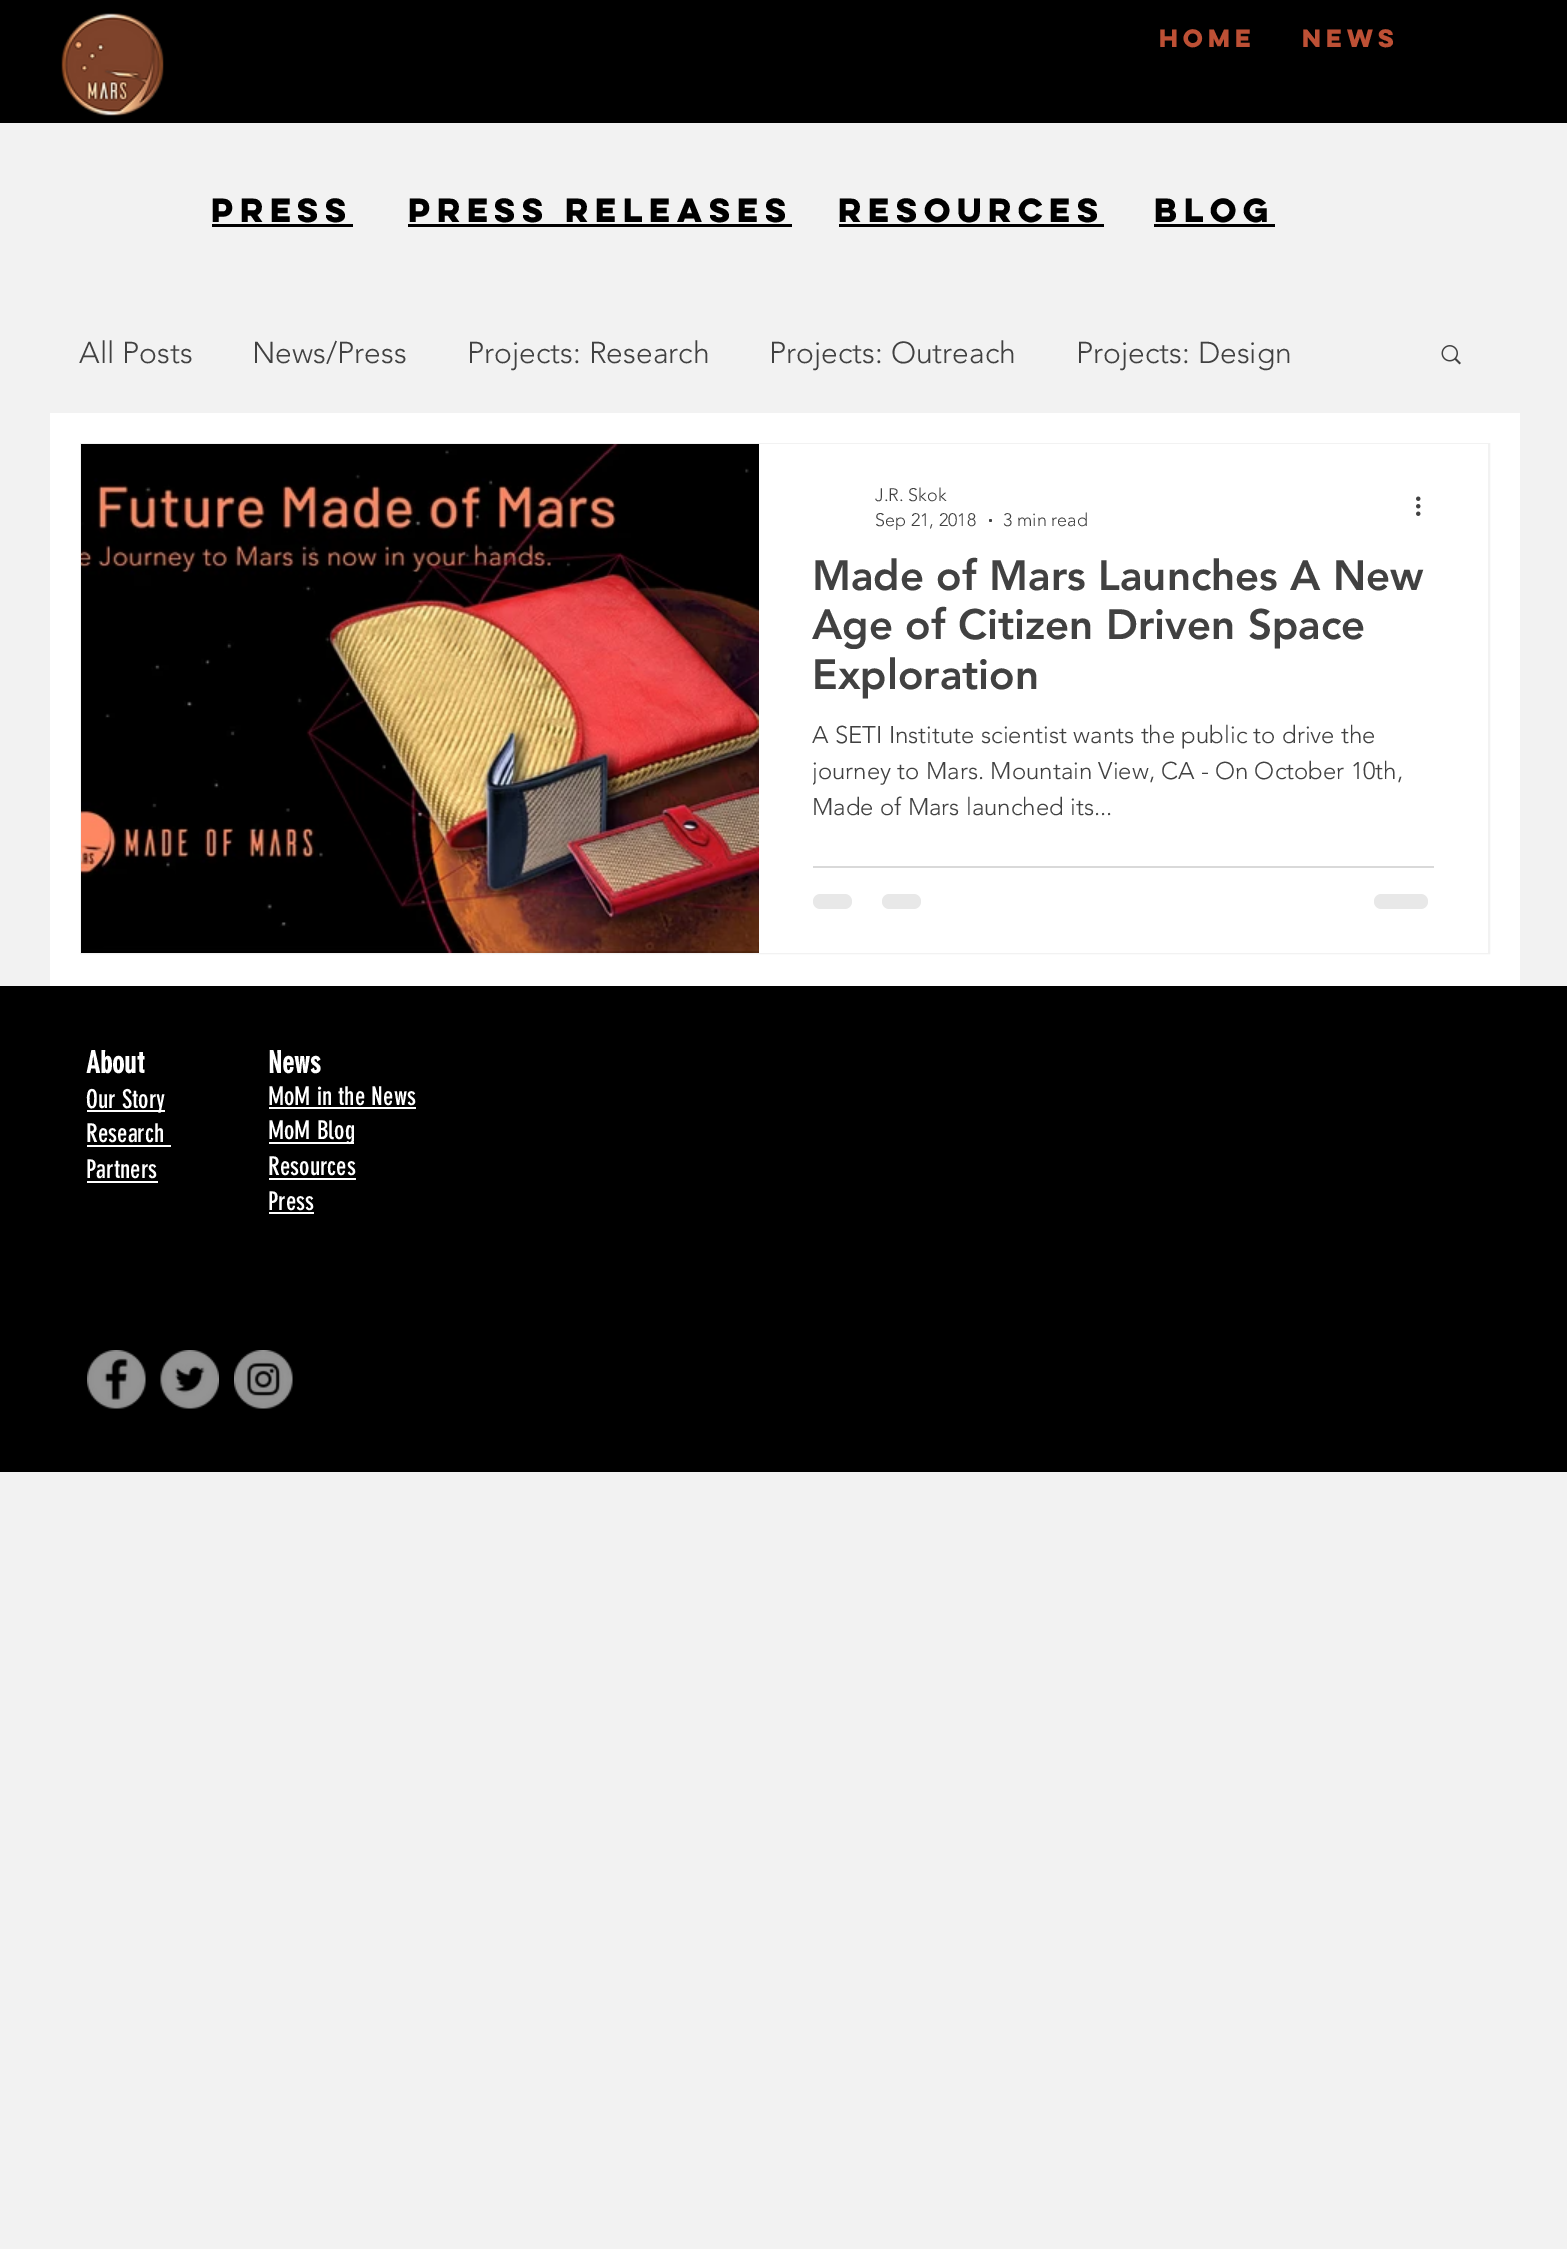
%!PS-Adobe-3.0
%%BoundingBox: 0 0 1567 2249
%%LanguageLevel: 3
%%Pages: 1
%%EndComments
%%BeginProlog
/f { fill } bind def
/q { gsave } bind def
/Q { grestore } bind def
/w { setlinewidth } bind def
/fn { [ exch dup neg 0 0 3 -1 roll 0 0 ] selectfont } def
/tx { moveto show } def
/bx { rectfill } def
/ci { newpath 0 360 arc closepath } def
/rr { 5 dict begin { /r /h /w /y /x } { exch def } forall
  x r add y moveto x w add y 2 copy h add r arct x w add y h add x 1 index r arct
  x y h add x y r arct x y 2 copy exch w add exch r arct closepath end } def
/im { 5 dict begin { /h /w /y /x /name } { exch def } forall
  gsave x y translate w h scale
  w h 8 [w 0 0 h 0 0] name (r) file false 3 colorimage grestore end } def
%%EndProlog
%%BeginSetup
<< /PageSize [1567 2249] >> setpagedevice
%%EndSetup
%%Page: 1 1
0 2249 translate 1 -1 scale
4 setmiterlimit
0.949 setgray
0 0 1567 2249 bx
0 setgray
0 0 1567 123 bx
(image0.raw) 61 13 103 103 im
/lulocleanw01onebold-Bold 22.5 fn
0.741 0.314 0.208 setrgbcolor
(Home) 1159 47 tx
(News) 1302 47 tx
/lulocleanw01onebold-Bold 30 fn
0 setgray
(Press) 211 222 tx
212 224 141 3 bx
(Press Releases) 408 222 tx
408 224 384 3 bx
(Resources) 838 222 tx
839 224 265 3 bx
(Blog) 1154 222 tx
1154 224 121 3 bx
1 setgray
50 413 1470 573 bx
/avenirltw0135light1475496-Light 30 fn
0.255 setgray
(All Posts) 79 363 tx
(News/Press) 252 363 tx
(Projects: Research) 467 363 tx
(Projects: Outreach) 769 363 tx
(Projects: Design) 1076 363 tx
(image1.raw) 1441 345 20 20 im
0.949 setgray
2 w
81 444 1408 509 rectstroke
(image2.raw) 81 444 678 509 im
1 setgray
759 444 729 509 bx
/avenirltw0135light1475496-Light 18 fn
0.255 setgray
(J.R. Skok) 875 501 tx
(Sep 21, 2018) 875 526 tx
990.5 520.5 1.5 ci f
(3 min read) 1003 526 tx
(image3.raw) 1416 496 5 20 im
/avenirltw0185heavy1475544-Black 42 fn
(Made of Mars Launches A New) 812 590 tx
(Age of Citizen Driven Space) 812 639 tx
(Exploration) 812 689 tx
/avenirltw0135light1475496-Light 24 fn
(A SETI Institute scientist wants the public to drive the) 812 743 tx
q
813 717 621 131 rectclip
(journey to Mars. Mountain View, CA - On October 10th,) 812 779 tx
Q
(Made of Mars launched its...) 812 815 tx
0.851 setgray
813 866 621 2 bx
0.91 setgray
813 894 39 15 7.5 rr f
882 894 39 15 7.5 rr f
1374 894 54 15 7.5 rr f
0 setgray
0 986 1567 486 bx
/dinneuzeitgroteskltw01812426-Bold 30 fn
1 setgray
(About) 86 1073 tx
(News) 268 1073 tx
87 1110 78 2 bx
/dinneuzeitgroteskltw01812426-Regular 25.5 fn
(Our Story) 86 1108 tx
(MoM in the News) 268 1105 tx
269 1107 147 2 bx
(Research) 86 1142 tx
87 1145 84 2 bx
269 1142 85 2 bx
(MoM Blog) 268 1139 tx
(Partners) 86 1178 tx
87 1181 71 2 bx
(Resources) 268 1175 tx
269 1178 87 2 bx
(Press) 268 1210 tx
269 1212 45 2 bx
(image4.raw) 87 1350 59 59 im
(image5.raw) 160 1350 59 59 im
(image6.raw) 234 1350 59 59 im
showpage
%%EOF
